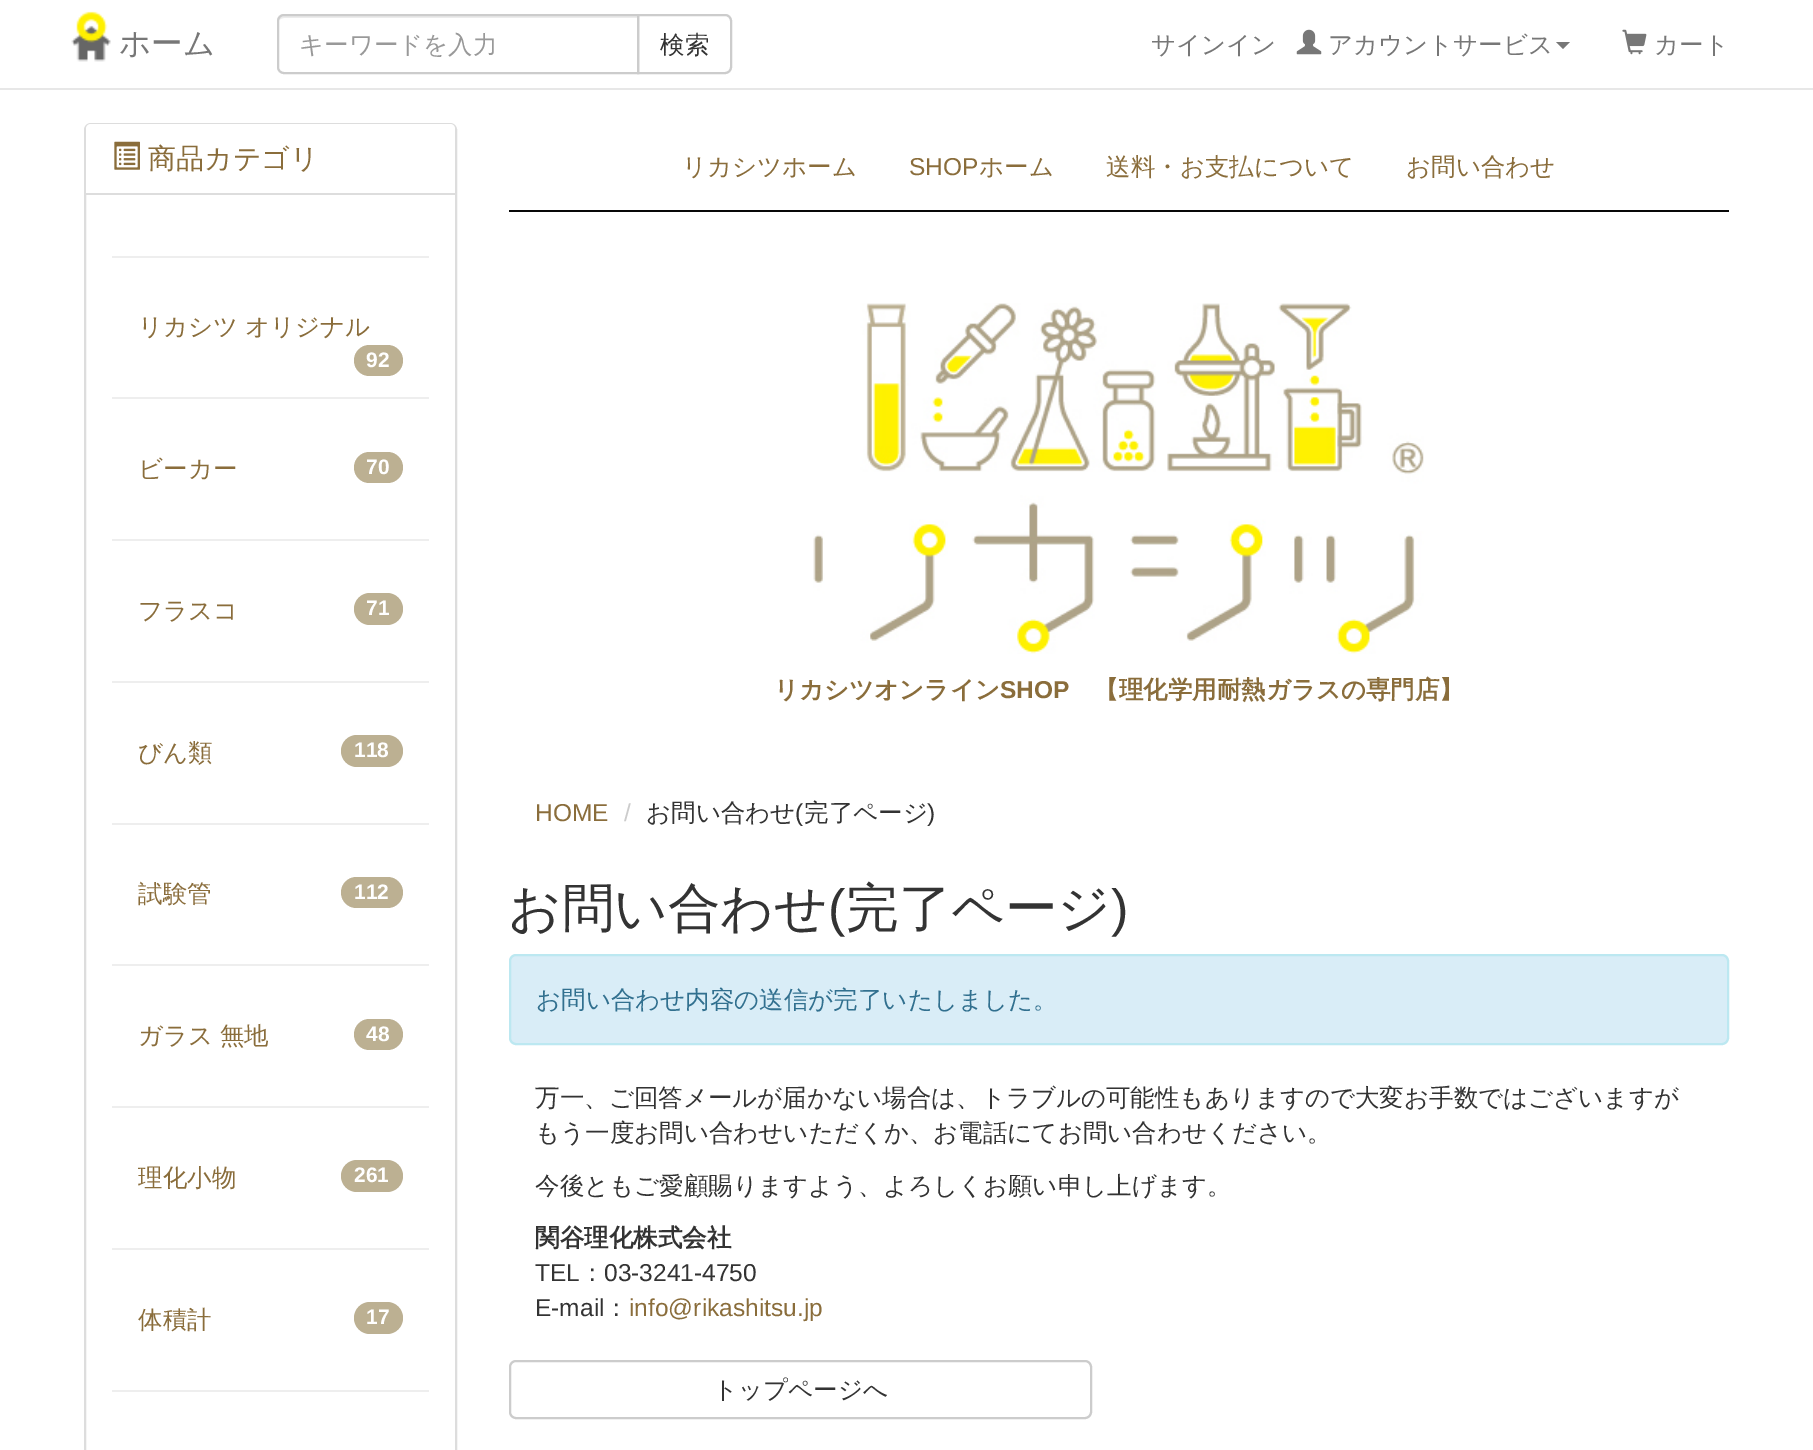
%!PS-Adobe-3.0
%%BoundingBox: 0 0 1813 1450
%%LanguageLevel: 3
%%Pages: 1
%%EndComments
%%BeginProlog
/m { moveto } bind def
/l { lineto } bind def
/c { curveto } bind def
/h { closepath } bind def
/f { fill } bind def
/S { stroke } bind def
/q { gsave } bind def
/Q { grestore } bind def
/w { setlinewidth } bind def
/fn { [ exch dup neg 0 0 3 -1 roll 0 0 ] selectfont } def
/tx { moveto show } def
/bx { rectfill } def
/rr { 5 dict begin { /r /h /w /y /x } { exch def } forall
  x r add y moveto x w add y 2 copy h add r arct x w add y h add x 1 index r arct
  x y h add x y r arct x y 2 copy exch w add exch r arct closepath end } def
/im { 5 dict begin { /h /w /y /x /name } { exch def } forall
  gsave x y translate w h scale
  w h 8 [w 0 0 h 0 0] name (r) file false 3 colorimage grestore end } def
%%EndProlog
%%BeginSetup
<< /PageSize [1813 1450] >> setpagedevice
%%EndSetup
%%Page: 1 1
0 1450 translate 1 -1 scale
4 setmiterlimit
1 setgray
0 0 1813 1450 bx
0.906 setgray
0 88 1813 2 bx
(image0.raw) 71 11 40 51 im
/WenQuanYiZenHei-Medium 31.5 fn
0.467 setgray
(ホーム) 119 54 tx
0.8 setgray
2 w
638 15 m 725 15 l 728.5 15 731 17.5 731 21 c 731 67 l 731 70.5 728.5 73 725 73 c 638 73 l h S
1 setgray
284 14 m 639 14 l 639 74 l 284 74 l 280 74 277 71 277 67 c 277 21 l 277 17 280 14 284 14 c h f
0.925 setgray
284 18 m 637 18 l 637 16 l 283 16 l 279 16 278 20 278 23 c 278 20 281 18 284 18 c h f
0.8 setgray
284 15 m 638 15 l 638 73 l 284 73 l 280.5 73 278 70.5 278 67 c 278 21 l 278 17.5 280.5 15 284 15 c h S
/WenQuanYiZenHei-Medium 24.5 fn
0.6 setgray
(キーワードを入力) 299 53 tx
0.2 setgray
(検索) 660 53 tx
0.467 setgray
(サインイン) 1151 53 tx
(image1.raw) 1296 29 26 26 im
(アカウントサービス) 1328 53 tx
1556 42 m 1570 42 l 1563 49 l h f
(image2.raw) 1622 29 25 26 im
(カート) 1654 53 tx
0.867 setgray
85 124 371 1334 6 rr S
1 setgray
91 124 m 450 124 l 453 124 455 126 455 129 c 455 194 l 86 194 l 86 129 l 86 126 88 124 91 124 c h f
0.867 setgray
86 193 369 2 bx
(image3.raw) 114 141 26 29 im
/WenQuanYiZenHei-Medium 28 fn
0.541 0.427 0.231 setrgbcolor
(商品カテゴリ) 148 168 tx
0.933 setgray
112 256 317 2 bx
/WenQuanYiZenHei-Medium 24.5 fn
0.541 0.427 0.231 setrgbcolor
138 335 m -1 0 32 (リカシツ オリジナル) widthshow
0.737 0.69 0.573 setrgbcolor
354 345 49 31 15.5 rr f
/LiberationSans-Bold 21 fn
1 setgray
(92) 366 367 tx
0.933 setgray
112 397 317 2 bx
/WenQuanYiZenHei-Medium 24.5 fn
0.541 0.427 0.231 setrgbcolor
(ビーカー) 138 477 tx
0.737 0.69 0.573 setrgbcolor
354 452 49 31 15.5 rr f
/LiberationSans-Bold 21 fn
1 setgray
(70) 366 474 tx
0.933 setgray
112 539 317 2 bx
/WenQuanYiZenHei-Medium 24.5 fn
0.541 0.427 0.231 setrgbcolor
(フラスコ) 138 619 tx
0.737 0.69 0.573 setrgbcolor
354 593 49 32 16 rr f
/LiberationSans-Bold 21 fn
1 setgray
(71) 366 615 tx
0.933 setgray
112 681 317 2 bx
/WenQuanYiZenHei-Medium 24.5 fn
0.541 0.427 0.231 setrgbcolor
(びん類) 138 761 tx
0.737 0.69 0.573 setrgbcolor
341 735 62 32 16 rr f
/LiberationSans-Bold 21 fn
1 setgray
(118) 354 757 tx
0.933 setgray
112 823 317 2 bx
/WenQuanYiZenHei-Medium 24.5 fn
0.541 0.427 0.231 setrgbcolor
(試験管) 138 902 tx
0.737 0.69 0.573 setrgbcolor
341 877 62 31 15.5 rr f
/LiberationSans-Bold 21 fn
1 setgray
(112) 354 899 tx
0.933 setgray
112 964 317 2 bx
/WenQuanYiZenHei-Medium 24.5 fn
0.541 0.427 0.231 setrgbcolor
138 1044 m -1 0 32 (ガラス 無地) widthshow
0.737 0.69 0.573 setrgbcolor
354 1019 49 31 15.5 rr f
/LiberationSans-Bold 21 fn
1 setgray
(48) 366 1041 tx
0.933 setgray
112 1106 317 2 bx
/WenQuanYiZenHei-Medium 24.5 fn
0.541 0.427 0.231 setrgbcolor
(理化小物) 138 1186 tx
0.737 0.69 0.573 setrgbcolor
341 1160 62 32 16 rr f
/LiberationSans-Bold 21 fn
1 setgray
(261) 354 1182 tx
0.933 setgray
112 1248 317 2 bx
/WenQuanYiZenHei-Medium 24.5 fn
0.541 0.427 0.231 setrgbcolor
(体積計) 138 1328 tx
0.737 0.69 0.573 setrgbcolor
354 1302 49 32 16 rr f
/LiberationSans-Bold 21 fn
1 setgray
(17) 366 1324 tx
0.933 setgray
112 1390 317 2 bx
0.031 setgray
509 210 1220 2 bx
/WenQuanYiZenHei-Medium 24.5 fn
0.541 0.427 0.231 setrgbcolor
(リカシツホーム) 682 175 tx
/LiberationSans-Regular 24.5 fn
(SHOP) 909 175 tx
/WenQuanYiZenHei-Medium 24.5 fn
(ホーム) 979 175 tx
(送料・お支払について) 1106 175 tx
(お問い合わせ) 1406 175 tx
(image4.raw) 813 303 611 351 im
/WenQuanYiZenHei-Bold 24.5 fn
(リカシツオンライン) 774 698 tx
/LiberationSans-Bold 24.5 fn
(SHOP) 1000 698 tx
/WenQuanYiZenHei-Bold 24.5 fn
(【理化学用耐熱ガラスの専門店】) 1094 698 tx
/LiberationSans-Regular 24.5 fn
(HOME) 535 821 tx
0.8 setgray
(/) 624 821 tx
/WenQuanYiZenHei-Medium 24.5 fn
0.2 setgray
(お問い合わせ) 646 821 tx
/LiberationSans-Regular 24.5 fn
(\() 795 821 tx
/WenQuanYiZenHei-Medium 24.5 fn
(完了ページ) 804 821 tx
/LiberationSans-Regular 24.5 fn
(\)) 927 821 tx
/WenQuanYiZenHei-Medium 52.5 fn
(お問い合わせ) 508 926 tx
/LiberationSans-Regular 52.5 fn
(\() 828 926 tx
/WenQuanYiZenHei-Medium 52.5 fn
(完了ページ) 846 926 tx
/LiberationSans-Regular 52.5 fn
(\)) 1111 926 tx
0.851 0.929 0.969 setrgbcolor
510 955 1218 89 6 rr q f Q
0.737 0.91 0.945 setrgbcolor
S
/WenQuanYiZenHei-Medium 24.5 fn
0.192 0.439 0.561 setrgbcolor
(お問い合わせ内容の送信が完了いたしました。) 536 1008 tx
0.2 setgray
(万一、ご回答メールが届かない場合は、トラブルの可能性もありますので大変お手数ではございますが) 535 1106 tx
(もう一度お問い合わせいただくか、お電話にてお問い合わせください。) 535 1141 tx
(今後ともご愛顧賜りますよう、よろしくお願い申し上げます。) 535 1194 tx
/WenQuanYiZenHei-Bold 24.5 fn
(関谷理化株式会社) 535 1246 tx
/LiberationSans-Regular 24.5 fn
(TEL) 535 1281 tx
/WenQuanYiZenHei-Medium 24.5 fn
(：) 580 1281 tx
/LiberationSans-Regular 24.5 fn
(03-3241-4750) 604 1281 tx
(E-mail) 535 1316 tx
/WenQuanYiZenHei-Medium 24.5 fn
(：) 604 1316 tx
/LiberationSans-Regular 24.5 fn
0.541 0.427 0.231 setrgbcolor
(info@rikashitsu.jp) 629 1316 tx
0.8 setgray
510 1361 581 57 6 rr S
/WenQuanYiZenHei-Medium 24.5 fn
0.2 setgray
(トップページへ) 713 1398 tx
showpage
%%EOF
